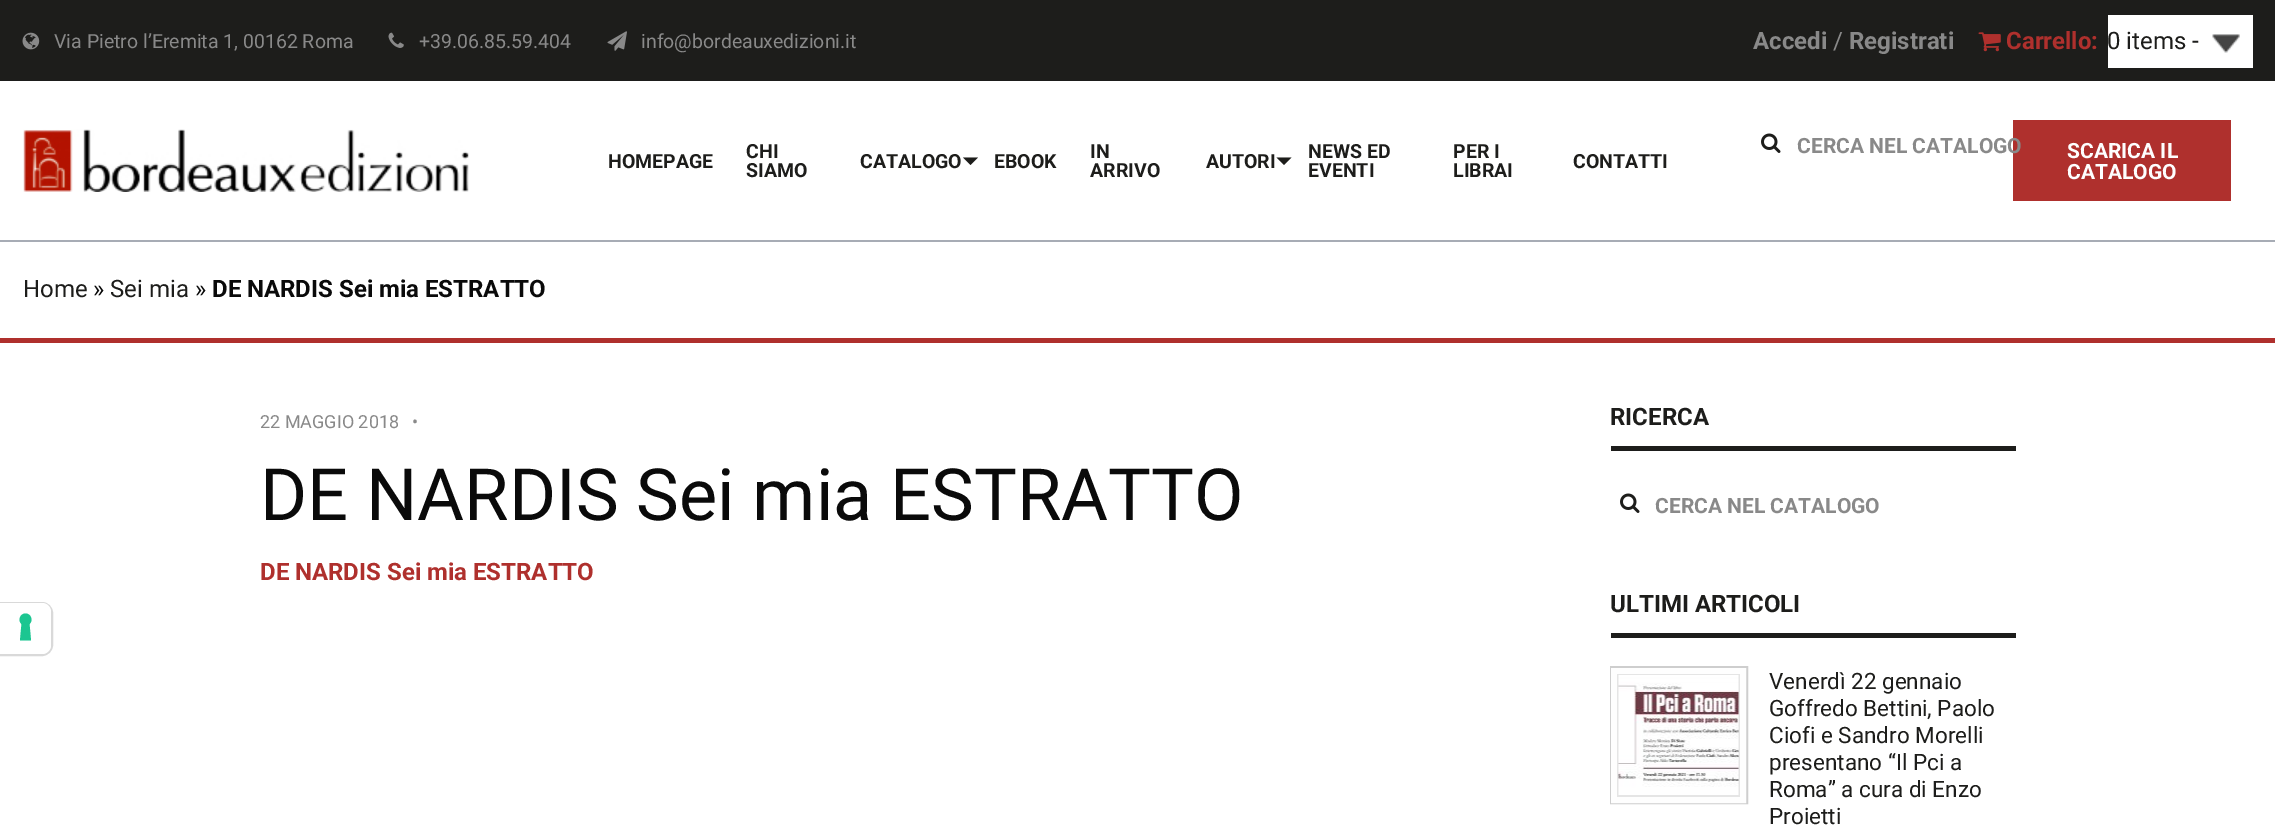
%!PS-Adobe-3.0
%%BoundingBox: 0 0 2275 837
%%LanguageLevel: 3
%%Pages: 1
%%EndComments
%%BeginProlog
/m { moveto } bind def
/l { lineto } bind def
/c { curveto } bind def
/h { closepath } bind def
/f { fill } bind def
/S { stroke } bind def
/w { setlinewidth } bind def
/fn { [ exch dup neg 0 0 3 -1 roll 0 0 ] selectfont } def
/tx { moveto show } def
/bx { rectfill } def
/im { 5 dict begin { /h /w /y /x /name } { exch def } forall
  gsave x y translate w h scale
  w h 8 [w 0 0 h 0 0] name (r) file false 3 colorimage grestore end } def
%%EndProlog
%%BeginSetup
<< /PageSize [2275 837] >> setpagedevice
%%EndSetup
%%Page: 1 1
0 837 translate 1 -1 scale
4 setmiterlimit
1 setgray
0 0 2275 837 bx
0.114 0.114 0.106 setrgbcolor
0 0 2275 81 bx
(image0.raw) 22 32 18 18 im
/Roboto-Regular 19.5 fn
0.537 setgray
(Via Pietro l’Eremita 1, 00162 Roma) 54 48 tx
(image1.raw) 388 32 16 16 im
(+39.06.85.59.404) 419 48 tx
(image2.raw) 607 31 20 20 im
(info@bordeauxedizioni.it) 641 48 tx
/Roboto-Bold 24 fn
(Accedi) 1753 49 tx
/Roboto-Regular 24 fn
(/) 1833 49 tx
/Roboto-Bold 24 fn
(Registrati) 1849 49 tx
(image3.raw) 1978 32 23 20 im
0.686 0.188 0.176 setrgbcolor
(Carrello:) 2006 49 tx
1 setgray
2108 15 145 53 bx
(image4.raw) 2212 34 28 19 im
/Roboto-Regular 24 fn
0.114 0.114 0.106 setrgbcolor
(0 items -) 2107 49 tx
(image5.raw) 23 129 446 63 im
/Roboto-Bold 19.5 fn
(HOMEPAGE) 608 168 tx
(CHI) 746 158 tx
(SIAMO) 746 177 tx
(CATALOGO) 860 168 tx
963 157.5 m 978 157.5 l 970.5 165 l h f
(EBOOK) 994 168 tx
(IN) 1090 158 tx
(ARRIVO) 1090 177 tx
(AUTORI) 1206 168 tx
1276.5 157.5 m 1291.5 157.5 l 1284 165 l h f
(NEWS ED) 1308 158 tx
(EVENTI) 1308 177 tx
(PER I) 1453 158 tx
(LIBRAI) 1453 177 tx
(CONTATTI) 1573 168 tx
(image6.raw) 1761 133 20 20 im
0.686 0.188 0.176 setrgbcolor
2013 120 218 81 bx
/Roboto-Bold 21 fn
0.537 setgray
(CERCA NEL CATALOGO) 1797 153 tx
0.996 setgray
(SCARICA IL) 2067 158 tx
(CATALOGO) 2067 179 tx
0.655 0.675 0.71 setrgbcolor
0 240 2275 2 bx
0.686 0.188 0.176 setrgbcolor
0 338 2275 5 bx
/Roboto-Regular 24 fn
0.114 0.114 0.106 setrgbcolor
(Home) 23 297 tx
0.039 setgray
(») 93 297 tx
0.114 0.114 0.106 setrgbcolor
(Sei mia) 110 297 tx
0.039 setgray
(») 195 297 tx
/Roboto-Bold 24 fn
(DE NARDIS Sei mia ESTRATTO) 212 297 tx
0.851 setgray
2 w
0 603 m 42 603 l 47.5 603 52 607.5 52 613 c 52 645 l 52 650.5 47.5 655 42 655 c 0 655 l h S
1 setgray
0 603 m 42 603 l 47 603 51 607 51 612 c 51 645 l 51 650 47 654 42 654 c 0 654 l h f
0.11 0.776 0.569 setrgbcolor
25.5 613.5 m 31 613.5 33.5 620.5 29.5 624 c 31 640.5 l 20 640.5 l 21.5 624 l 17.5 620.5 20 613.5 25.5 613.5 c h eofill
/Roboto-Regular 18 fn
0.537 setgray
(22 MAGGIO 2018   •) 260 428 tx
/Roboto-Regular 72 fn
0.039 setgray
(DE NARDIS Sei mia ESTRATTO) 260 520 tx
/Roboto-Bold 24 fn
0.686 0.188 0.176 setrgbcolor
(DE NARDIS Sei mia ESTRATTO) 260 580 tx
0.114 0.114 0.106 setrgbcolor
1611 446 405 5 bx
(RICERCA) 1610 425 tx
(image6.raw) 1620 493 20 20 im
/Roboto-Bold 21 fn
0.537 setgray
(CERCA NEL CATALOGO) 1655 513 tx
0.114 0.114 0.106 setrgbcolor
1611 633 405 5 bx
/Roboto-Bold 24 fn
(ULTIMI ARTICOLI) 1610 612 tx
0.808 setgray
1611 667 136 136 rectstroke
0.996 setgray
6 w
1614 671 129 129 rectstroke
0.898 setgray
1617 674 123 123 bx
(image7.raw) 1618 675 121 120 im
/Roboto-Regular 22.5 fn
0.114 0.114 0.106 setrgbcolor
(Venerdì 22 gennaio) 1769 689 tx
(Goffredo Bettini, Paolo) 1769 716 tx
(Ciofi e Sandro Morelli) 1769 743 tx
(presentano “Il Pci a) 1769 770 tx
(Roma” a cura di Enzo) 1769 797 tx
(Proietti) 1769 824 tx
showpage
%%EOF
